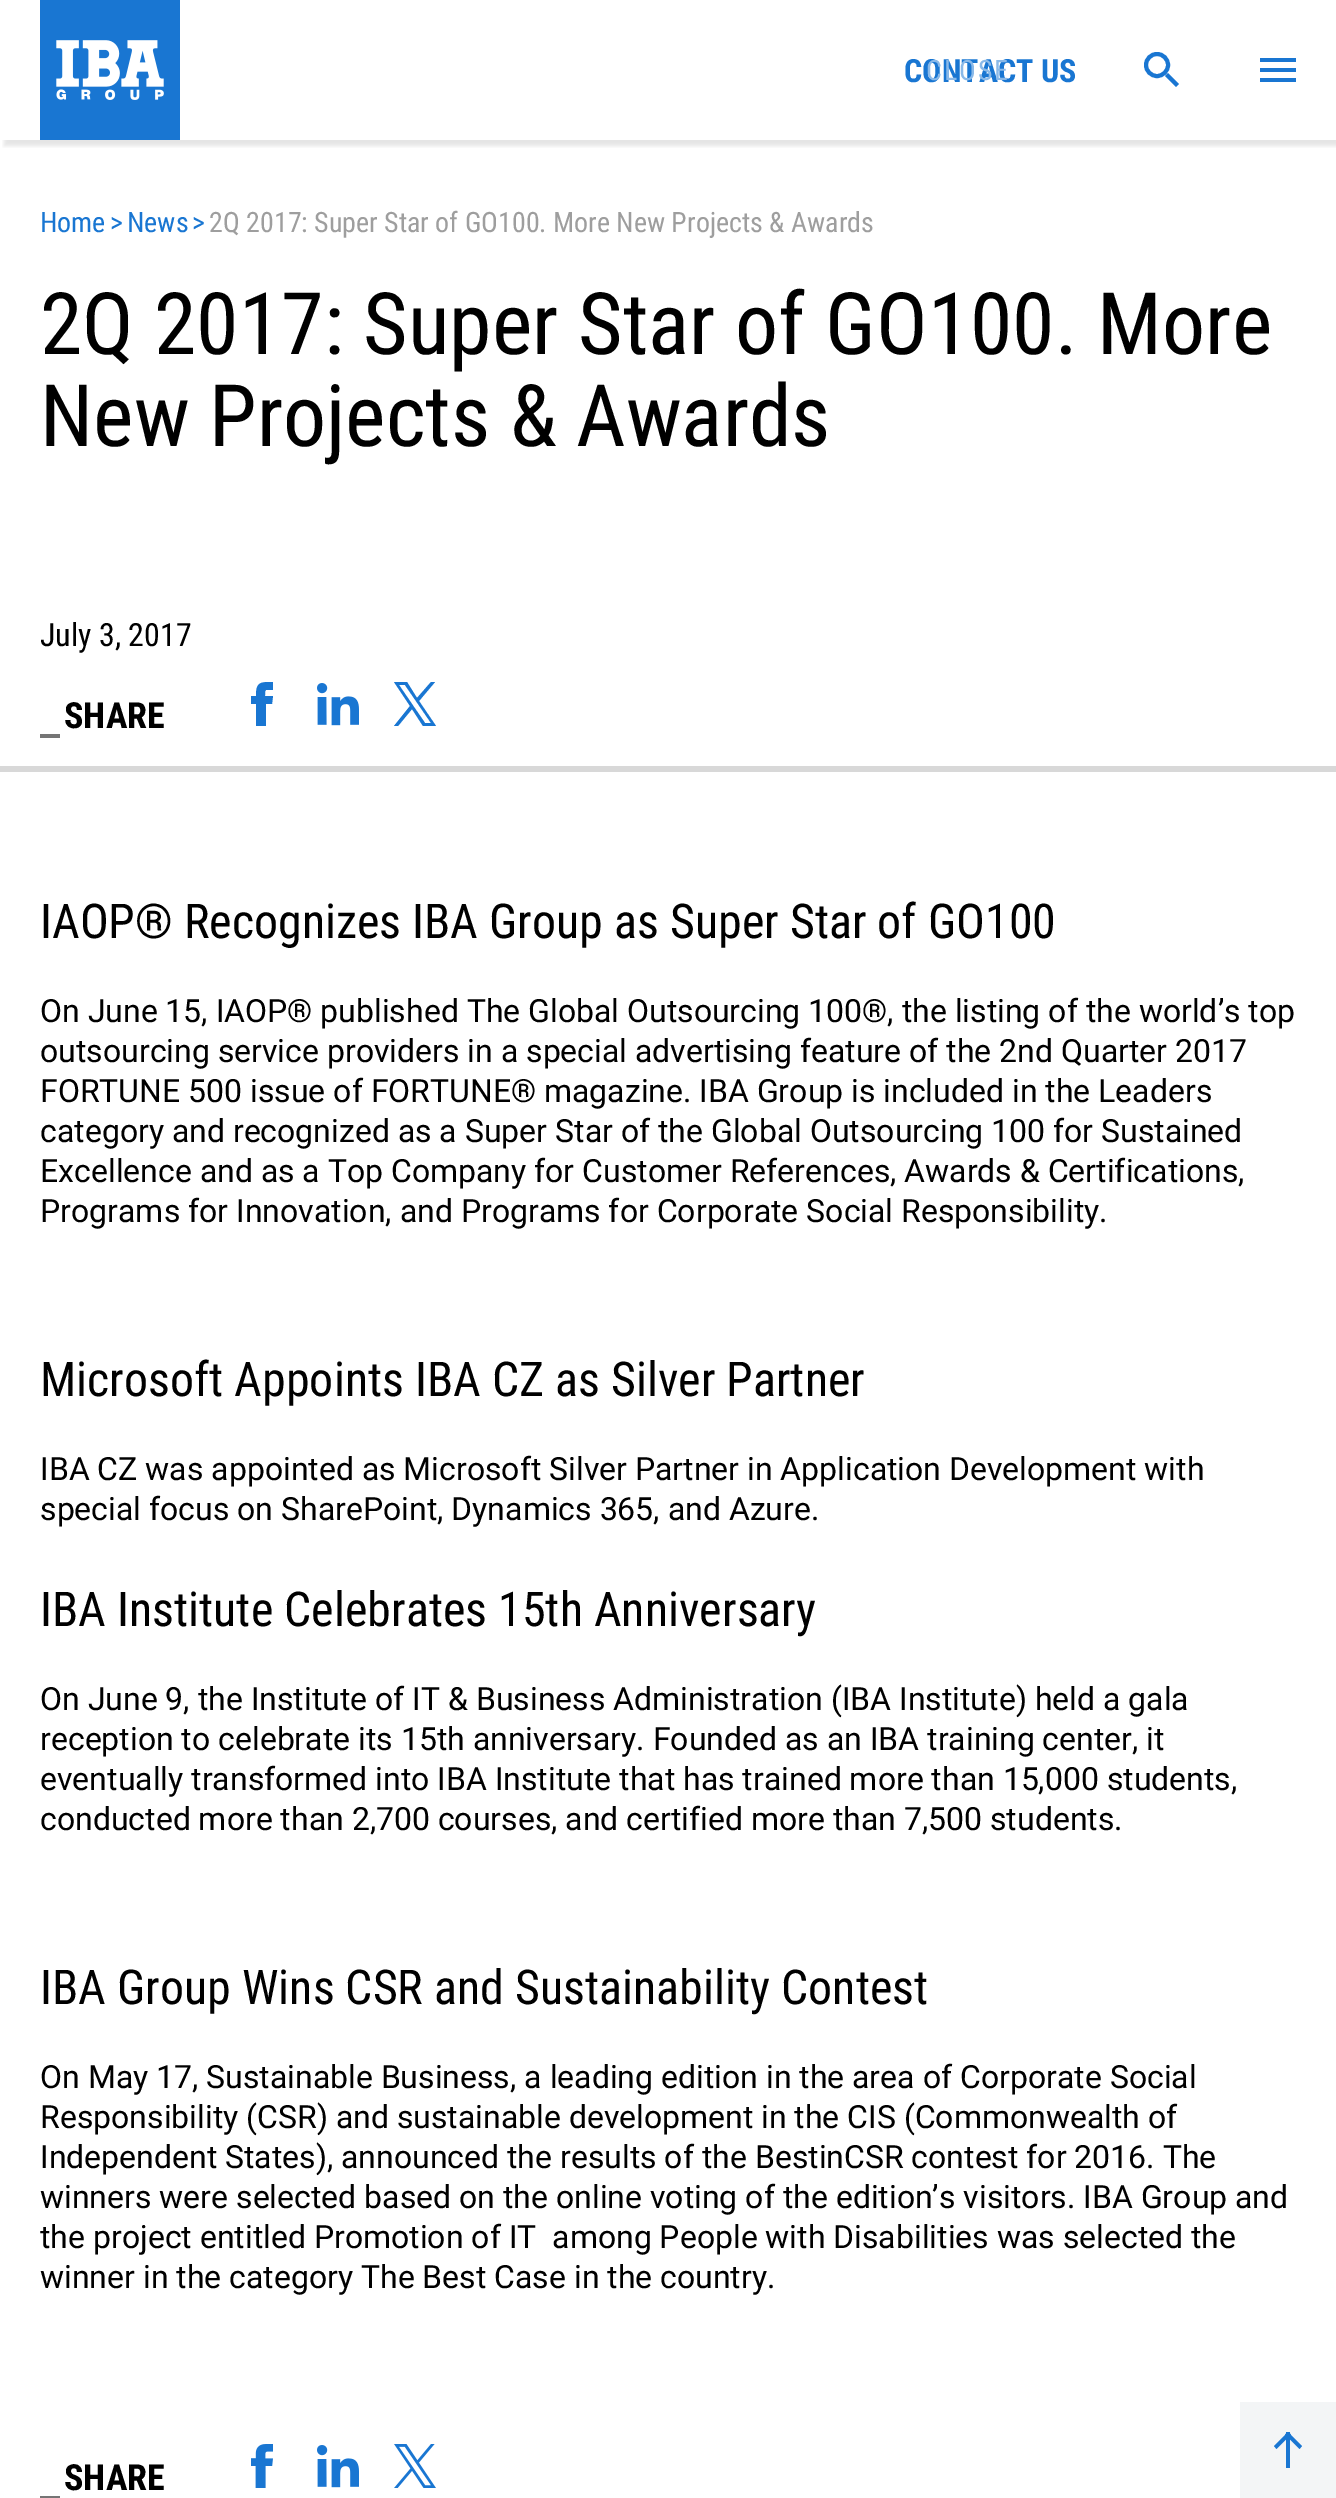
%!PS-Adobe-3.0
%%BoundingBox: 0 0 1336 2498
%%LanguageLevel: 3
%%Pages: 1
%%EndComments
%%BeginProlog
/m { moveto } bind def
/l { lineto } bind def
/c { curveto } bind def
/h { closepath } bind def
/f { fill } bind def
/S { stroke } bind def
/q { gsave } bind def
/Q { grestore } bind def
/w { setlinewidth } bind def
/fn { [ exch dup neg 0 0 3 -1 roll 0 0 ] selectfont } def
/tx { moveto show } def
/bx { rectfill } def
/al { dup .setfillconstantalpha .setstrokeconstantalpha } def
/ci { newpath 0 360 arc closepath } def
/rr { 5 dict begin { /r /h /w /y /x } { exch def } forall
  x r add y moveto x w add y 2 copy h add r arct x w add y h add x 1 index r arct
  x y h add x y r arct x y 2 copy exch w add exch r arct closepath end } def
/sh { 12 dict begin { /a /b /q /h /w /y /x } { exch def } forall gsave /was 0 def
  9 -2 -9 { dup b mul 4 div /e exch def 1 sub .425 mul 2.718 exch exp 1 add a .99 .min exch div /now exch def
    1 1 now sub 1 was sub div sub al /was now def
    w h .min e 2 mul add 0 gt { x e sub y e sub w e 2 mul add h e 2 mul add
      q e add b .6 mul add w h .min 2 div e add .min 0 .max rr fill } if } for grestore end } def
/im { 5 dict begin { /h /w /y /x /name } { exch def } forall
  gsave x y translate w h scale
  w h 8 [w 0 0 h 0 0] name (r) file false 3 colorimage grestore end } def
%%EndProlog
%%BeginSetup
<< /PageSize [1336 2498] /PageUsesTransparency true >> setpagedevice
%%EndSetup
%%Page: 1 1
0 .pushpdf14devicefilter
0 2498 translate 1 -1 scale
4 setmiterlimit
1 setgray
0 0 1336 2498 bx
q
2 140 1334 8 rectclip
0 setgray
4 6 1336 140 0 2 0.1 sh
Q
q 40 0 m 180 0 l 180 140 l 40 140 l h clip newpath
<< /ShadingType 2 /ColorSpace /DeviceRGB /Coords [110 0 110 280] /Extend [true true] /Function << /FunctionType 3 /Domain [0 1] /Functions [<< /FunctionType 2 /Domain [0 1] /C0 [0.098 0.463 0.824] /C1 [0.098 0.463 0.824] /N 1 >> << /FunctionType 2 /Domain [0 1] /C0 [0.098 0.463 0.824] /C1 [0.082 0.396 0.753] /N 1 >>] /Bounds [0.5] /Encode [0 1 0 1] >> >> shfill Q
(image0.raw) 56 40 108 60 im
0.098 0.463 0.824 setrgbcolor
4 w
1157 65 11 ci S
1168 73 m 1179 84 l 1176 87 l 1165 76 l h f
1260 58 36 4 bx
1260 68 36 4 bx
1260 78 36 4 bx
/RobotoCondensed-Bold 32 fn
(CONTACT US) 904 82 tx
/RobotoCondensed-Regular 28 fn
0.541 0.725 0.91 setrgbcolor
926 80 m 2 0 (CLOSE) ashow
0.098 0.463 0.824 setrgbcolor
(Home) 40 232 tx
(>) 110 232 tx
(News) 127 232 tx
(>) 192 232 tx
0.62 setgray
(2Q 2017: Super Star of GO100. More New Projects & Awards) 209 232 tx
/RobotoCondensed-Regular 86 fn
0 setgray
(2Q 2017: Super Star of GO100. More) 40 354 tx
(New Projects & Awards) 40 446 tx
/RobotoCondensed-Regular 32 fn
(July 3, 2017) 40 646 tx
/RobotoCondensed-Bold 36 fn
(SHARE) 64 728 tx
0.459 setgray
40 734 20 4 bx
0.098 0.463 0.824 setrgbcolor
272 704 m 266 704 l 266 726 l 256 726 l 256 704 l 251 704 l 251 696 l 256 696 l 256 682 260 682 273 682 c 273 690 l 265 690 265 688 265 696 c 273 696 l h f
(image1.raw) 317 683 42 43 im
419 701 m 435 682 l 431 682 l 417 698 l 407 682 l 394 682 l 410 706 l 394 726 l 398 726 l 412 709 l 423 726 l 436 726 l h 414 707 m 399 685 l 405 685 l 431 723 l 425 723 l h f
0.847 setgray
0 766 1336 6 bx
/RobotoCondensed-Regular 48 fn
0 setgray
(IAOP® Recognizes IBA Group as Super Star of GO100) 40 938 tx
/Roboto-Regular 32 fn
(On June 15, IAOP® published The Global Outsourcing 100®, the listing of the world’s top) 40 1022 tx
(outsourcing service providers in a special advertising feature of the 2nd Quarter 2017) 40 1062 tx
(FORTUNE 500 issue of FORTUNE® magazine. IBA Group is included in the Leaders) 40 1102 tx
(category and recognized as a Super Star of the Global Outsourcing 100 for Sustained) 40 1142 tx
(Excellence and as a Top Company for Customer References, Awards & Certifications,) 40 1182 tx
(Programs for Innovation, and Programs for Corporate Social Responsibility.) 40 1222 tx
/RobotoCondensed-Regular 48 fn
(Microsoft Appoints IBA CZ as Silver Partner) 40 1396 tx
/Roboto-Regular 32 fn
(IBA CZ was appointed as Microsoft Silver Partner in Application Development with) 40 1480 tx
(special focus on SharePoint, Dynamics 365, and Azure.) 40 1520 tx
/RobotoCondensed-Regular 48 fn
(IBA Institute Celebrates 15th Anniversary) 40 1626 tx
/Roboto-Regular 32 fn
(On June 9, the Institute of IT & Business Administration \(IBA Institute\) held a gala) 40 1710 tx
(reception to celebrate its 15th anniversary. Founded as an IBA training center, it) 40 1750 tx
(eventually transformed into IBA Institute that has trained more than 15,000 students,) 40 1790 tx
(conducted more than 2,700 courses, and certified more than 7,500 students.) 40 1830 tx
/RobotoCondensed-Regular 48 fn
(IBA Group Wins CSR and Sustainability Contest) 40 2004 tx
/Roboto-Regular 32 fn
(On May 17, Sustainable Business, a leading edition in the area of Corporate Social) 40 2088 tx
(Responsibility \(CSR\) and sustainable development in the CIS \(Commonwealth of) 40 2128 tx
(Independent States\), announced the results of the BestinCSR contest for 2016. The) 40 2168 tx
(winners were selected based on the online voting of the edition’s visitors. IBA Group and) 40 2208 tx
(the project entitled Promotion of IT  among People with Disabilities was selected the) 40 2248 tx
(winner in the category The Best Case in the country.) 40 2288 tx
/RobotoCondensed-Bold 36 fn
(SHARE) 64 2490 tx
0.459 setgray
40 2496 20 2 bx
(image2.raw) 251 2444 22 44 im
(image1.raw) 317 2445 42 43 im
(image3.raw) 394 2444 42 44 im
0.953 0.961 0.965 setrgbcolor
1240 2402 96 96 bx
0.098 0.463 0.824 setrgbcolor
1288 2432 m 1302 2446 l 1299.5 2449 l 1285 2434.5 l h f
1288 2432 m 1291 2434.5 l 1276.5 2449 l 1274 2446 l h f
1286 2432 4 36 bx
.poppdf14devicefilter showpage
%%EOF
